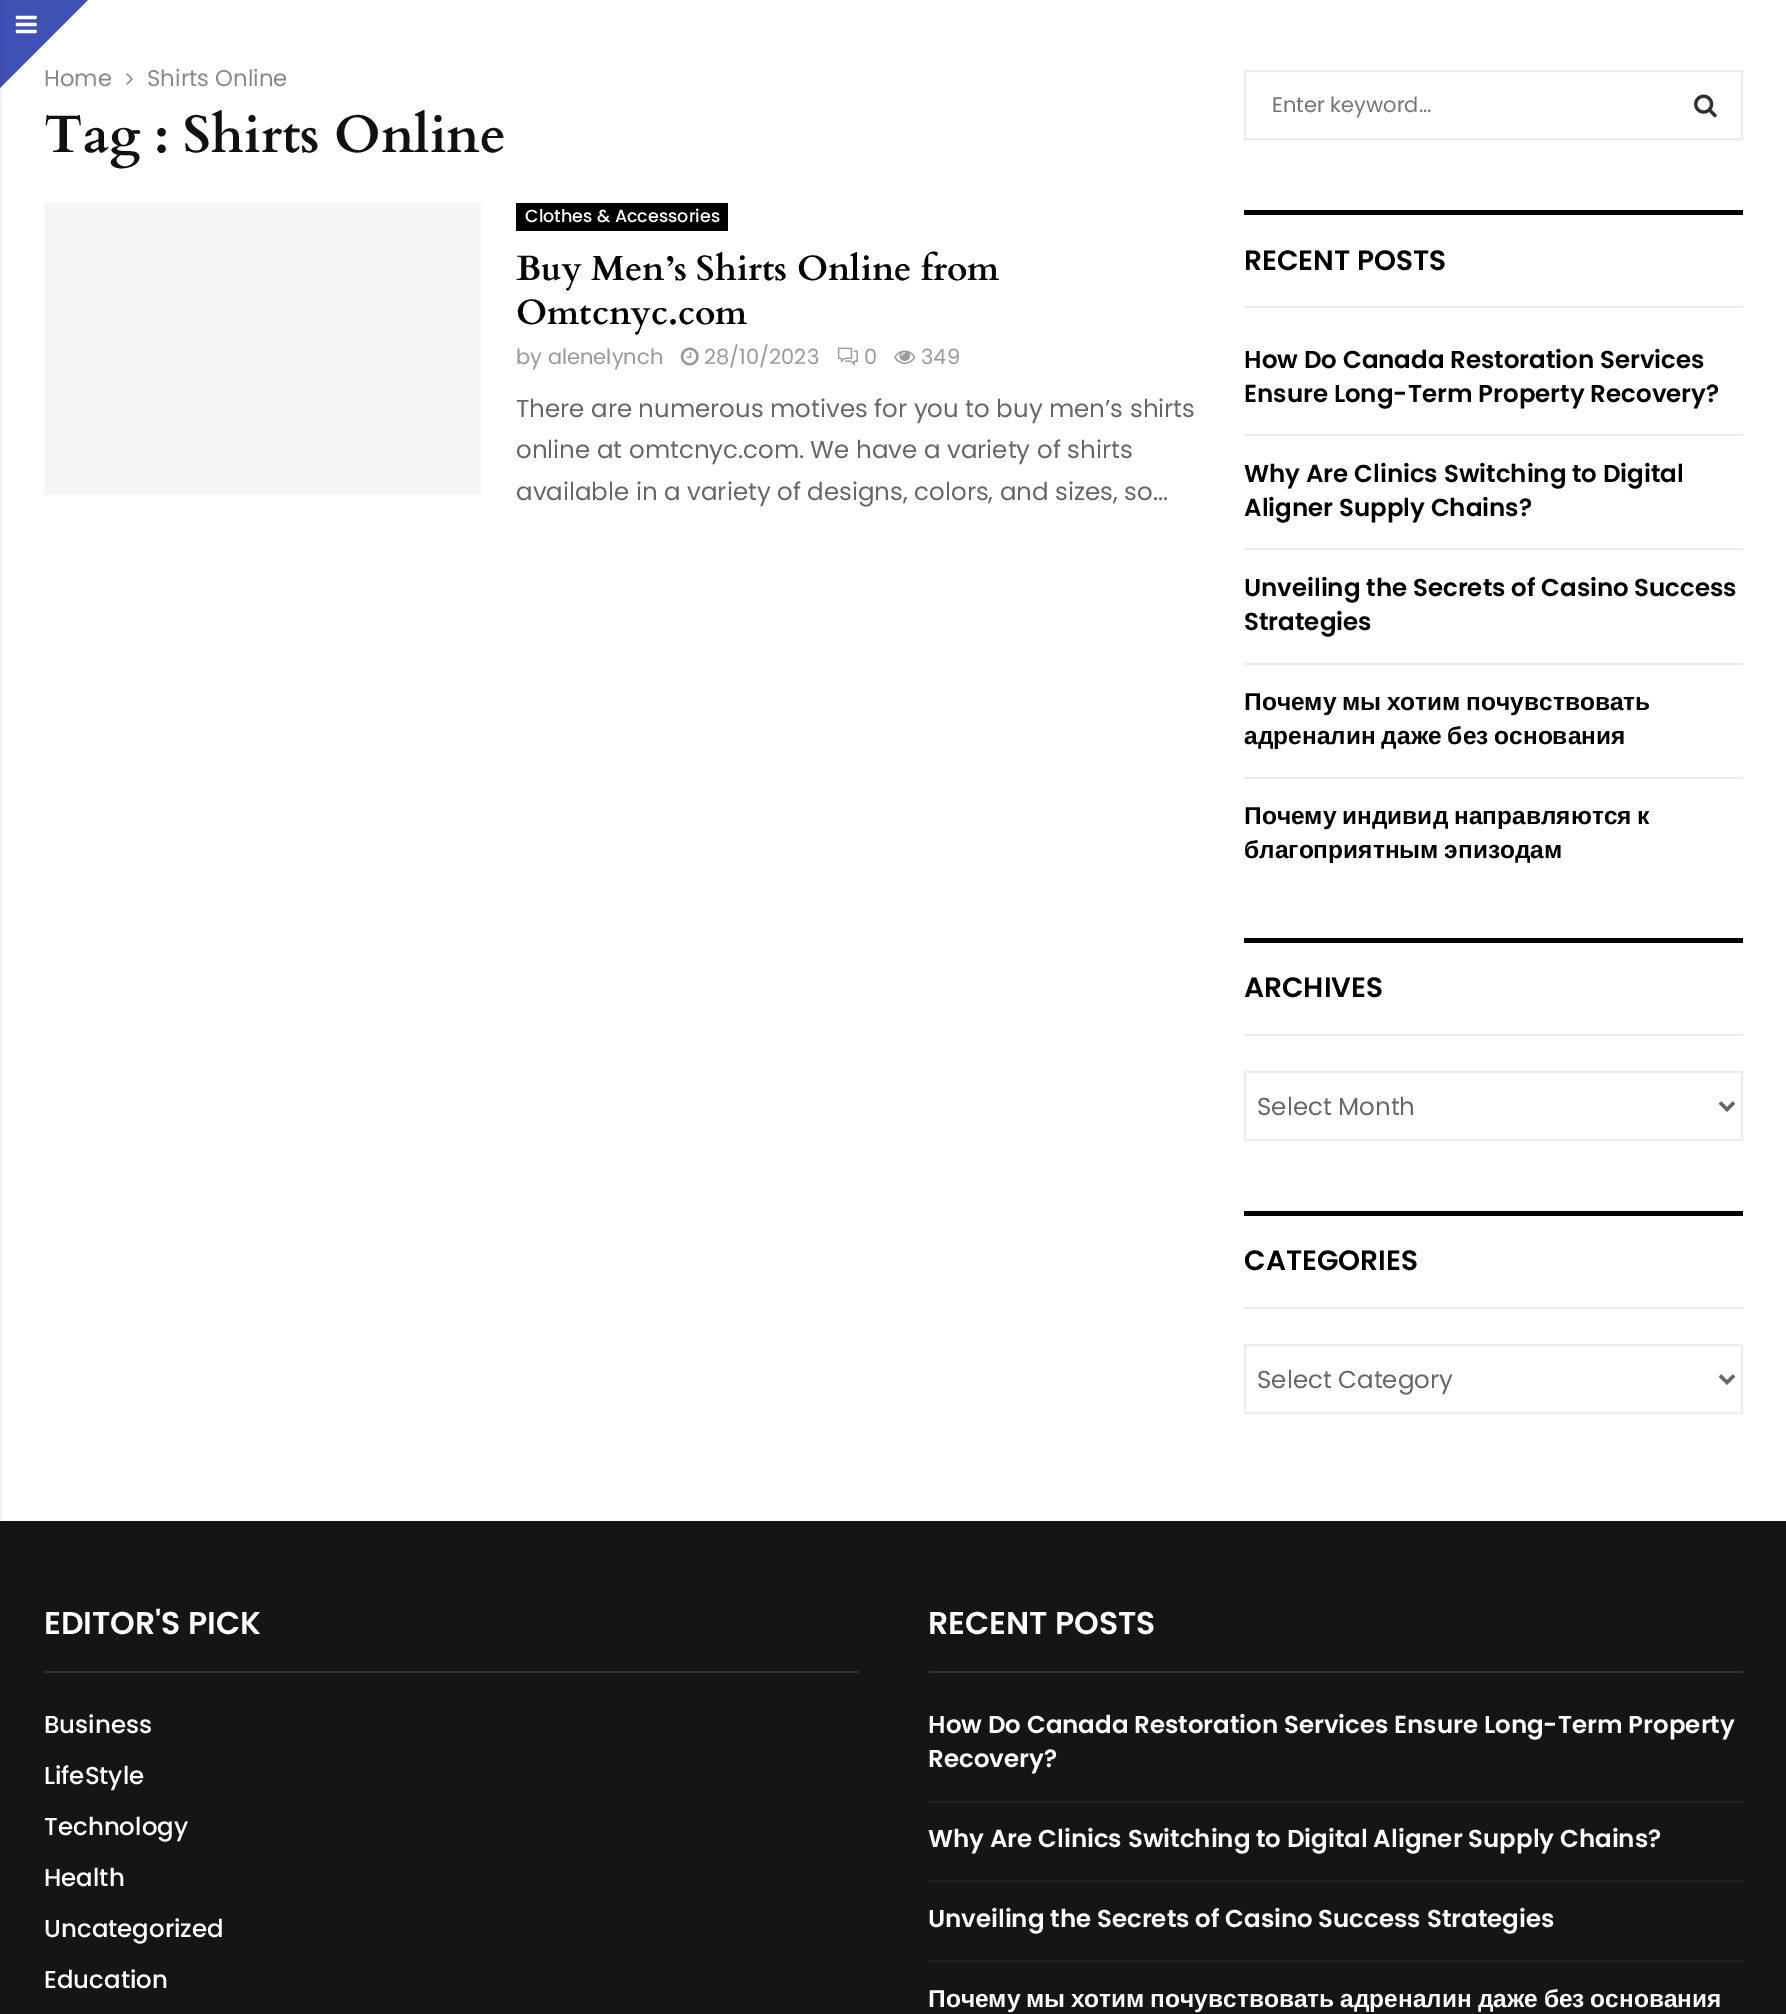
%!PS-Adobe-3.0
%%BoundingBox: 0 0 1786 2014
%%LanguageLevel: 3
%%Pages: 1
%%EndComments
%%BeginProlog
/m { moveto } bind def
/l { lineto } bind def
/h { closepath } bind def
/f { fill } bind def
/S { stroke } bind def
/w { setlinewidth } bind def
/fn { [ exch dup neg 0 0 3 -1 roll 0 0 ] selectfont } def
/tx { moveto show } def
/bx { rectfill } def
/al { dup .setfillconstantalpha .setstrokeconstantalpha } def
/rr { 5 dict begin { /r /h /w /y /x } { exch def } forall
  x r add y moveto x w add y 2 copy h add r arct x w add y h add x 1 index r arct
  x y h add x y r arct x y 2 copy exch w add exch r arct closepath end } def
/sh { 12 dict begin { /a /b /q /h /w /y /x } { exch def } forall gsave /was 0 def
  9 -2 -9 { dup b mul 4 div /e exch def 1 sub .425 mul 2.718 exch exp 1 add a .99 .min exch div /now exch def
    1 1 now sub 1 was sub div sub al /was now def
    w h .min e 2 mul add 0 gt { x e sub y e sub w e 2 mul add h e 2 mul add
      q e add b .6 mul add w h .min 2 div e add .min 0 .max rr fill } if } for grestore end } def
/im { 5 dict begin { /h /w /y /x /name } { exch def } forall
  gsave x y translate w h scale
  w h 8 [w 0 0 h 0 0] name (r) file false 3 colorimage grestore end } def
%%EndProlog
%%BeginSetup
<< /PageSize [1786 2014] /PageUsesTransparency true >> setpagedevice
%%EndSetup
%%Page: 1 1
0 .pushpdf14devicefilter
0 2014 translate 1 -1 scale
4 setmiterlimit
1 setgray
0 0 1786 2014 bx
/Poppins-Regular 22.75 fn
0.533 setgray
(Home) 44 86 tx
0.247 0.318 0.71 setrgbcolor
0 0 m 88 0 l 0 88 l h f
(image0.raw) 15 15 22 19 im
0.082 setgray
0 1521 1786 493 bx
0 setgray
-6 0 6 2014 0 2 0.15 sh
(image1.raw) 126 73 7 12 im
0.533 setgray
(Shirts Online) 147 86 tx
/Cardo-Bold 52.5 fn
0.067 setgray
(Tag : Shirts Online) 44 152 tx
0.961 setgray
44 203 437 292 bx
0 setgray
516 203 212 28 bx
/Poppins-Medium 17.5 fn
1 setgray
(Clothes & Accessories) 525 222 tx
/Cardo-Bold 35 fn
0 setgray
(Buy Men’s Shirts Online from) 516 280 tx
(Omtcnyc.com) 516 324 tx
/Poppins-Regular 21 fn
0.6 setgray
(by alenelynch) 516 364 tx
(image2.raw) 680 347 19 19 im
(28/10/2023) 704 364 tx
(image3.raw) 837 347 21 19 im
(0) 864 364 tx
(image4.raw) 894 350 22 14 im
(349) 921 364 tx
/Poppins-Regular 24.5 fn
0.4 setgray
(There are numerous motives for you to buy men’s shirts) 516 417 tx
(online at omtcnyc.com. We have a variety of shirts) 516 458 tx
(available in a variety of designs, colors, and sizes, so...) 516 500 tx
0.925 setgray
2 w
1245 71 497 68 rectstroke
/Poppins-Regular 21 fn
0.459 setgray
(Enter keyword...) 1272 112 tx
(image5.raw) 1694 94 23 24 im
0.925 setgray
1244 306 499 2 bx
0 setgray
1244 210 499 5 bx
/Poppins-SemiBold 28 fn
(RECENT POSTS) 1244 270 tx
0.925 setgray
1244 434 499 2 bx
/Poppins-SemiBold 24.5 fn
0 setgray
(How Do Canada Restoration Services) 1244 368 tx
(Ensure Long-Term Property Recovery?) 1244 402 tx
0.925 setgray
1244 548 499 2 bx
0 setgray
(Why Are Clinics Switching to Digital) 1244 482 tx
(Aligner Supply Chains?) 1244 516 tx
0.925 setgray
1244 663 499 2 bx
0 setgray
(Unveiling the Secrets of Casino Success) 1244 596 tx
(Strategies) 1244 630 tx
0.925 setgray
1244 777 499 2 bx
/LiberationSans-Bold 24.5 fn
0 setgray
1244 710 m -1 0 32 (Почему мы хотим почувствовать) widthshow
1244 744 m -1 0 32 (адреналин даже без основания) widthshow
1244 824 m -1 0 32 (Почему индивид направляются к) widthshow
1244 858 m -1 0 32 (благоприятным эпизодам) widthshow
0.925 setgray
1244 1034 499 2 bx
0 setgray
1244 938 499 5 bx
/Poppins-SemiBold 28 fn
(ARCHIVES) 1244 997 tx
0.925 setgray
1245 1072 497 68 rectstroke
0.4 setgray
3.5 w
1720 1102.5 m 1727 1109.5 l 1734 1102.5 l S
/Poppins-Regular 24.5 fn
(Select Month) 1257 1115 tx
0.925 setgray
1244 1307 499 2 bx
0 setgray
1244 1211 499 5 bx
/Poppins-SemiBold 28 fn
(CATEGORIES) 1244 1270 tx
0.925 setgray
2 w
1245 1345 497 68 rectstroke
0.4 setgray
3.5 w
1720 1375.5 m 1727 1382.5 l 1734 1375.5 l S
/Poppins-Regular 24.5 fn
(Select Category) 1257 1388 tx
0.192 setgray
44 1671 815 2 bx
/Poppins-SemiBold 31.5 fn
1 setgray
(EDITOR'S PICK) 44 1634 tx
/Poppins-Medium 24.5 fn
(Business) 44 1733 tx
(LifeStyle) 44 1784 tx
(Technology) 44 1835 tx
(Health) 44 1886 tx
(Uncategorized) 44 1937 tx
(Education) 44 1988 tx
0.192 setgray
929 1671 814 2 bx
/Poppins-SemiBold 31.5 fn
1 setgray
(RECENT POSTS) 928 1634 tx
0.129 setgray
929 1801 814 2 bx
/Poppins-SemiBold 24.5 fn
1 setgray
(How Do Canada Restoration Services Ensure Long-Term Property) 928 1733 tx
(Recovery?) 928 1767 tx
0.129 setgray
929 1880 814 2 bx
1 setgray
(Why Are Clinics Switching to Digital Aligner Supply Chains?) 928 1847 tx
0.129 setgray
929 1960 814 2 bx
1 setgray
(Unveiling the Secrets of Casino Success Strategies) 928 1927 tx
/LiberationSans-Bold 24.5 fn
928 2007 m -1 0 32 (Почему мы хотим почувствовать адреналин даже без основания) widthshow
.poppdf14devicefilter showpage
%%EOF
